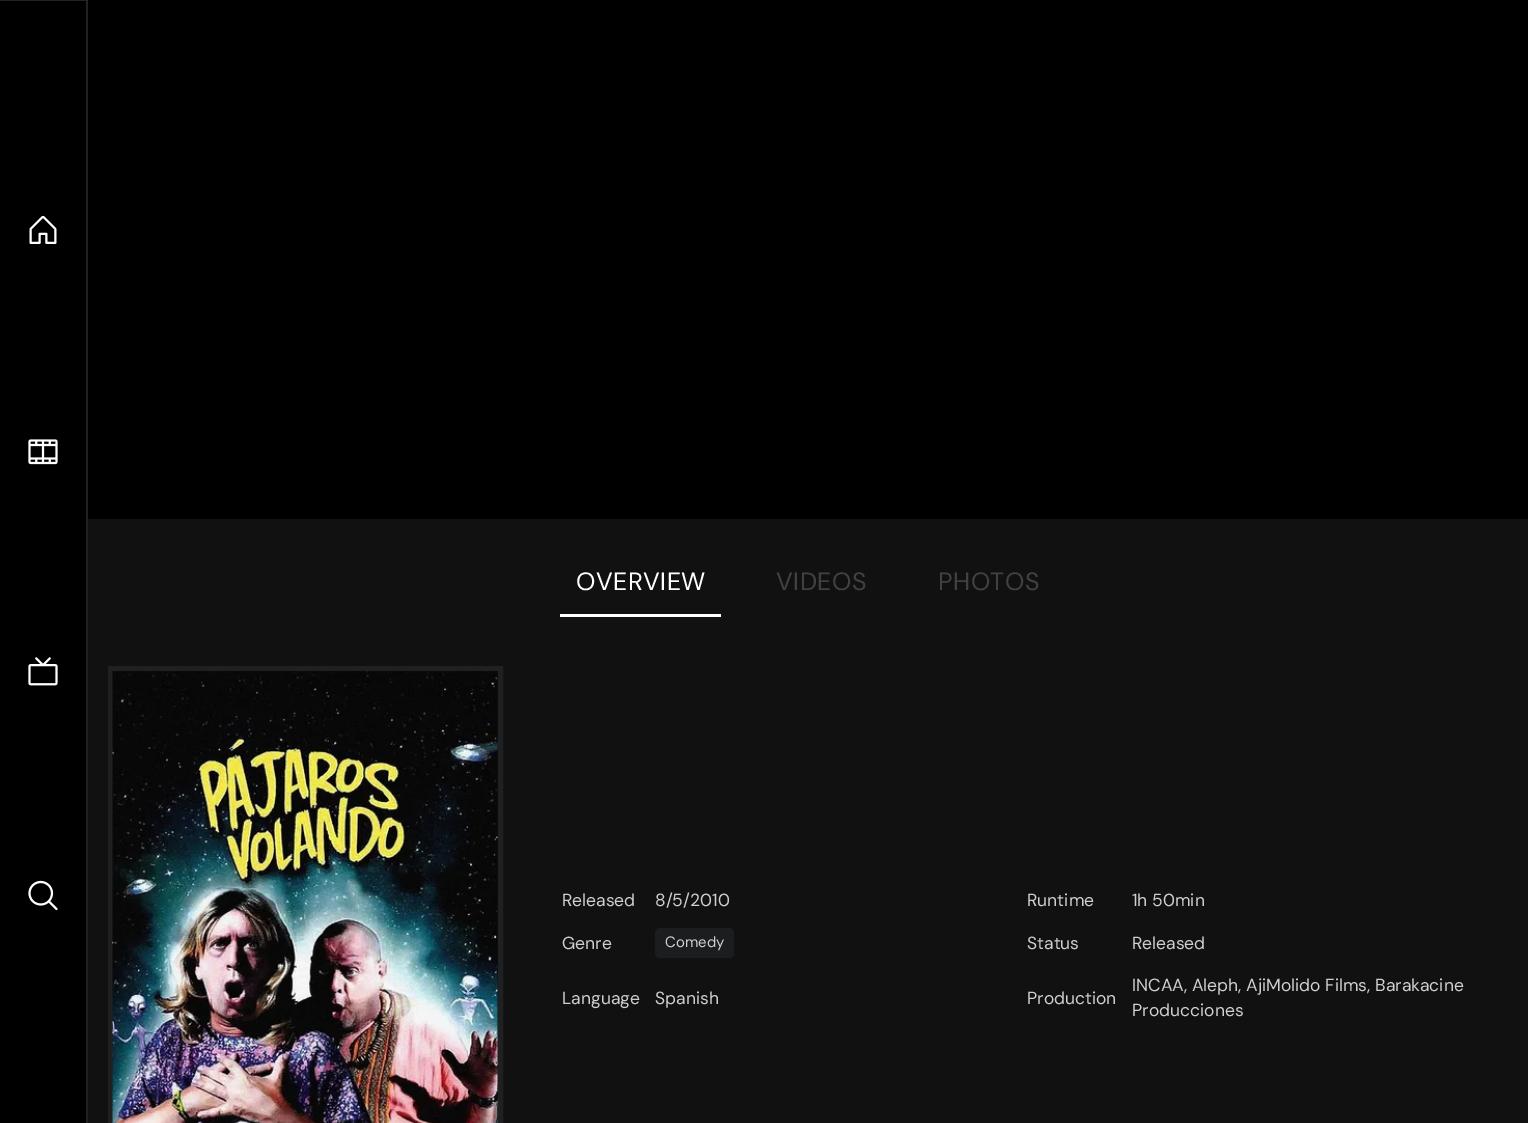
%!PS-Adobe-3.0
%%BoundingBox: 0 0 1528 1123
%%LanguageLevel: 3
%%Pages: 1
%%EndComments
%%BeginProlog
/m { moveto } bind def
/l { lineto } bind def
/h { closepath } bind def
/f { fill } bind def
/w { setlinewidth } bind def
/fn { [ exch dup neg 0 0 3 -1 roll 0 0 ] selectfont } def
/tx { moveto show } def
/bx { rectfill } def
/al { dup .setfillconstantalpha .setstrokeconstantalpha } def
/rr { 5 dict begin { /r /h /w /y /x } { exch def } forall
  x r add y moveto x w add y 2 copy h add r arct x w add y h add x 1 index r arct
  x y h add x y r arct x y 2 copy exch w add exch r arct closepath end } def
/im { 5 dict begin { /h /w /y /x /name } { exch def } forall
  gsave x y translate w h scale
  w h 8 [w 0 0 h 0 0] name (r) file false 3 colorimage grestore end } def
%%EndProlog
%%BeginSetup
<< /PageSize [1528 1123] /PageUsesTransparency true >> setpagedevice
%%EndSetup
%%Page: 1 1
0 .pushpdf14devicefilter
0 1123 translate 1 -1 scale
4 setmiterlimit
0.067 setgray
0 0 1528 1123 bx
0 setgray
0 0 88 1123 bx
0.122 0.129 0.137 setrgbcolor
0 0 m 88 0 l 86 1 l 0 1 l h f
0.2 al
0.612 0.639 0.686 setrgbcolor
88 0 m 88 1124 l 86 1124 l 86 1 l h f
1 al
(image0.raw) 29 215 28 29 im
(image1.raw) 28 439 30 26 im
(image2.raw) 28 657 30 29 im
(image3.raw) 28 880 30 31 im
0 setgray
88 0 1440 519 bx
1 setgray
560 614 161 3 bx
/DMSans-Regular 25 fn
576 590 m 0.5 0 (OVERVIEW) ashow
0.255 setgray
776 590 m 0.5 0 (VIDEOS) ashow
938 590 m 0.5 0 (PHOTOS) ashow
0.122 0.125 0.129 setrgbcolor
5 w
110.5 668.5 390 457 rectstroke
(image4.raw) 112 671 386 452 im
/DMSans-Regular 17.5 fn
0.812 setgray
(Released) 562 906 tx
(8/5/2010) 655 906 tx
(Runtime) 1027 906 tx
(1h 50min) 1132 906 tx
(Genre) 562 949 tx
0.11 0.114 0.118 setrgbcolor
655 928 79 30 5 rr f
/DMSans-Regular 15 fn
0.812 setgray
(Comedy) 665 947 tx
/DMSans-Regular 17.5 fn
(Status) 1027 949 tx
(Released) 1132 949 tx
(Language) 562 1004 tx
(Spanish) 655 1004 tx
(Production) 1027 1004 tx
(INCAA, Aleph, AjiMolido Films, Barakacine) 1132 991 tx
(Producciones) 1132 1016 tx
.poppdf14devicefilter showpage
%%EOF
